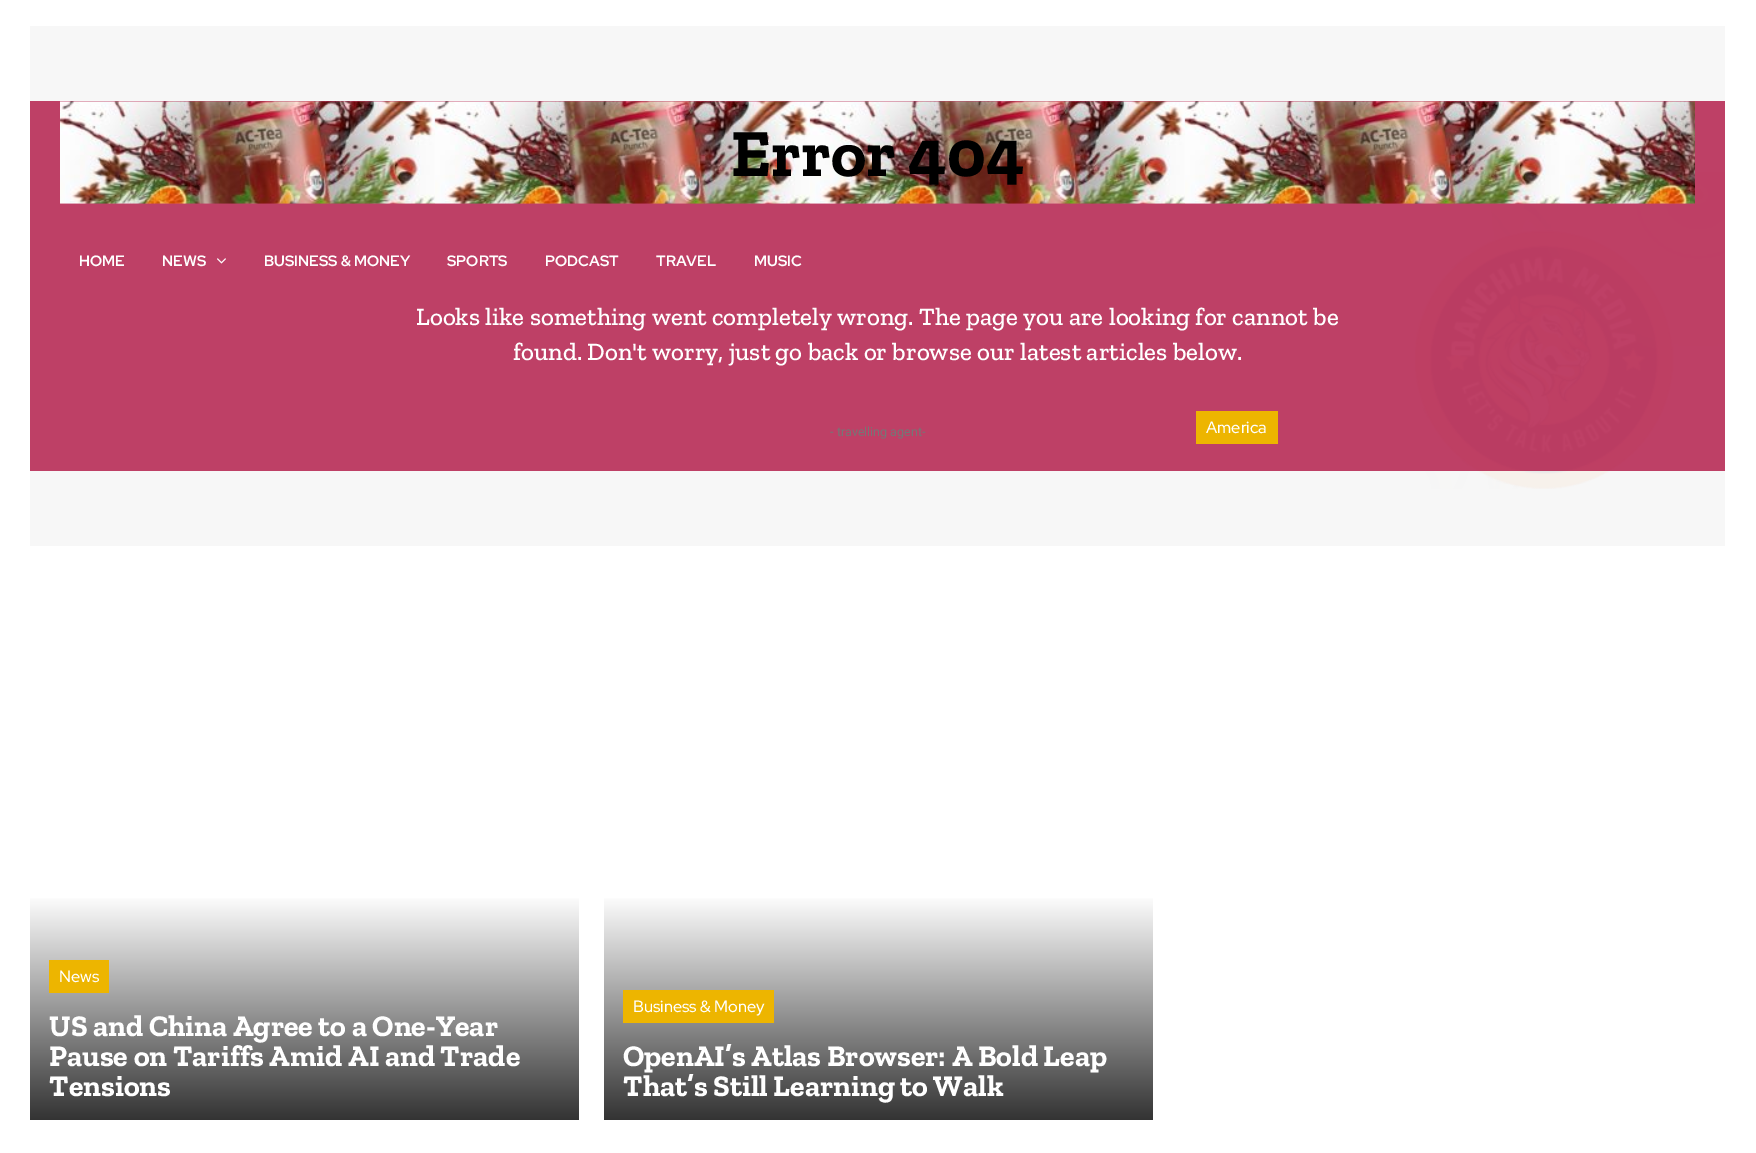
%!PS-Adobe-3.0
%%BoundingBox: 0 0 1756 1153
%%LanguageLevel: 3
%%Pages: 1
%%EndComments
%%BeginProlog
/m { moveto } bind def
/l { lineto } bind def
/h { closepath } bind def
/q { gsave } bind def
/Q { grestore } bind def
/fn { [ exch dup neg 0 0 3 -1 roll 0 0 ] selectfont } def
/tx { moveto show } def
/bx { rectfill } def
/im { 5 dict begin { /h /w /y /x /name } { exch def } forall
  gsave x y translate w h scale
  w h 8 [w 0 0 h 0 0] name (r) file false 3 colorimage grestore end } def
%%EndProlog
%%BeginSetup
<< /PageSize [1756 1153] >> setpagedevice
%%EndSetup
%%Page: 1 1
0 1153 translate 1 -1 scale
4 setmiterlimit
1 setgray
0 0 1756 1153 bx
0.969 setgray
30 26 1695 520 bx
0.745 0.251 0.4 setrgbcolor
30 101 1695 370 bx
(image0.raw) 1415 172 310 317 im
(image1.raw) 60 101 1635 103 im
/ZillaSlab-Bold 67.5 fn
0 setgray
(Error 404) 731 176 tx
/RedHatDisplay-Bold 15 fn
1 setgray
(HOME) 79 266 tx
(NEWS) 162 266 tx
(image2.raw) 217 258 9 6 im
(BUSINESS & MONEY) 264 266 tx
(SPORTS) 447 266 tx
(PODCAST) 545 266 tx
(TRAVEL) 656 266 tx
(MUSIC) 754 266 tx
/ZillaSlab-Medium 25 fn
(Looks like something went completely wrong. The page you are looking for cannot be) 416 325 tx
(found. Don't worry, just go back or browse our latest articles below.) 513 360 tx
/Roboto-Regular 12.5 fn
0.463 setgray
(- travelling agent-) 830 436 tx
0.929 0.71 0 setrgbcolor
1196 411 82 33 bx
/RedHatDisplay-Medium 16.25 fn
1 setgray
(America) 1206 433 tx
q 30 898 m 579 898 l 579 1120 l 30 1120 l h clip newpath
<< /ShadingType 2 /ColorSpace /DeviceRGB /Coords [304 1120 304 571] /Extend [true true] /Function << /FunctionType 3 /Domain [0 1] /Functions [<< /FunctionType 2 /Domain [0 1] /C0 [0.2 0.2 0.2] /C1 [1 1 1] /N 1 >> << /FunctionType 2 /Domain [0 1] /C0 [1 1 1] /C1 [1 1 1] /N 1 >>] /Bounds [0.41] /Encode [0 1 0 1] >> >> shfill Q
0.929 0.71 0 setrgbcolor
49 960 60 33 bx
1 setgray
(News) 59 982 tx
/ZillaSlab-Bold 30 fn
(US and China Agree to a One-Year) 49 1036 tx
(Pause on Tariffs Amid AI and Trade) 49 1066 tx
(Tensions) 49 1096 tx
q 604 898 m 1153 898 l 1153 1120 l 604 1120 l h clip newpath
<< /ShadingType 2 /ColorSpace /DeviceRGB /Coords [878 1120 878 571] /Extend [true true] /Function << /FunctionType 3 /Domain [0 1] /Functions [<< /FunctionType 2 /Domain [0 1] /C0 [0.2 0.2 0.2] /C1 [1 1 1] /N 1 >> << /FunctionType 2 /Domain [0 1] /C0 [1 1 1] /C1 [1 1 1] /N 1 >>] /Bounds [0.41] /Encode [0 1 0 1] >> >> shfill Q
0.929 0.71 0 setrgbcolor
623 990 151 33 bx
/RedHatDisplay-Medium 16.25 fn
1 setgray
(Business & Money) 633 1012 tx
/ZillaSlab-Bold 30 fn
(OpenAI’s Atlas Browser: A Bold Leap) 623 1066 tx
(That’s Still Learning to Walk) 623 1096 tx
showpage
%%EOF
